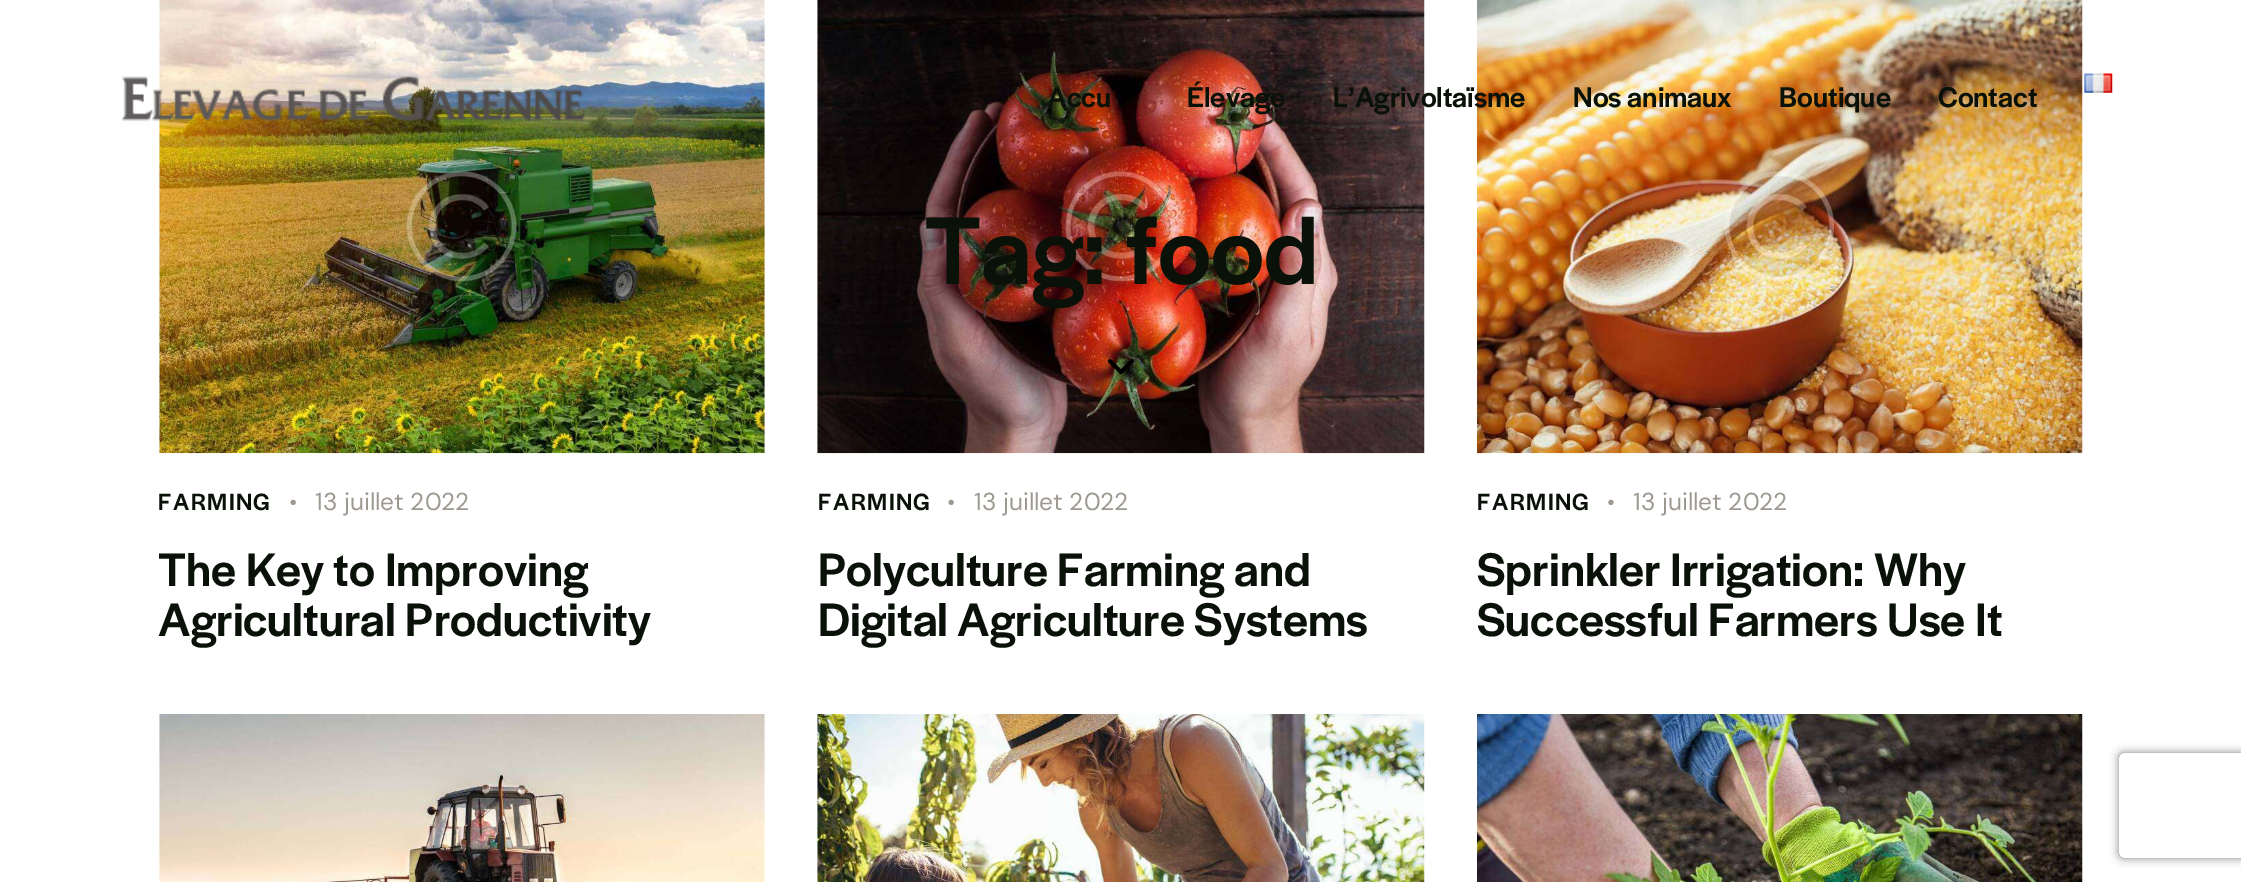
%!PS-Adobe-3.0
%%BoundingBox: 0 0 2241 882
%%LanguageLevel: 3
%%Pages: 1
%%EndComments
%%BeginProlog
/m { moveto } bind def
/l { lineto } bind def
/c { curveto } bind def
/h { closepath } bind def
/q { gsave } bind def
/Q { grestore } bind def
/fn { [ exch dup neg 0 0 3 -1 roll 0 0 ] selectfont } def
/tx { moveto show } def
/bx { rectfill } def
/al { dup .setfillconstantalpha .setstrokeconstantalpha } def
/rr { 5 dict begin { /r /h /w /y /x } { exch def } forall
  x r add y moveto x w add y 2 copy h add r arct x w add y h add x 1 index r arct
  x y h add x y r arct x y 2 copy exch w add exch r arct closepath end } def
/sh { 12 dict begin { /a /b /q /h /w /y /x } { exch def } forall gsave /was 0 def
  9 -2 -9 { dup b mul 4 div /e exch def 1 sub .425 mul 2.718 exch exp 1 add a .99 .min exch div /now exch def
    1 1 now sub 1 was sub div sub al /was now def
    w h .min e 2 mul add 0 gt { x e sub y e sub w e 2 mul add h e 2 mul add
      q e add b .6 mul add w h .min 2 div e add .min 0 .max rr fill } if } for grestore end } def
/im { 5 dict begin { /h /w /y /x /name } { exch def } forall
  gsave x y translate w h scale
  w h 8 [w 0 0 h 0 0] name (r) file false 3 colorimage grestore end } def
%%EndProlog
%%BeginSetup
<< /PageSize [2241 882] /PageUsesTransparency true >> setpagedevice
%%EndSetup
%%Page: 1 1
0 .pushpdf14devicefilter
0 882 translate 1 -1 scale
4 setmiterlimit
1 setgray
0 0 2241 882 bx
(image3.raw) 159 0 606 454 im
(image0.raw) 121 76 464 46 im
(image5.raw) 817 0 608 454 im
/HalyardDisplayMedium-Medium 29.75 fn
0.039 0.067 0.031 setrgbcolor
(Accu) 1047 107 tx
(Élevage) 1187 107 tx
(image6.raw) 1477 0 606 454 im
(L’Agrivoltaïsme) 1333 107 tx
(Nos animaux) 1573 107 tx
(Boutique) 1779 107 tx
(Contact) 1938 107 tx
(image1.raw) 2084 73 29 20 im
/HalyardDisplayMedium-Medium 100 fn
(Tag: food) 924 284 tx
(image2.raw) 1108 358 26 17 im
/HalyardDisplayMedium-Medium 24.5 fn
158 510 m 1.5 0 (FARMING) ashow
(image4.raw) 290 499 6 7 im
/DMSans-Regular 24.5 fn
0.616 0.596 0.565 setrgbcolor
(13 juillet 2022) 315 510 tx
/HalyardDisplayMedium-Medium 49 fn
0.039 0.067 0.031 setrgbcolor
(The Key to Improving) 158 586 tx
(Agricultural Productivity) 158 636 tx
/HalyardDisplayMedium-Medium 24.5 fn
818 510 m 1.5 0 (FARMING) ashow
(image4.raw) 948 499 6 7 im
/DMSans-Regular 24.5 fn
0.616 0.596 0.565 setrgbcolor
(13 juillet 2022) 974 510 tx
/HalyardDisplayMedium-Medium 49 fn
0.039 0.067 0.031 setrgbcolor
(Polyculture Farming and) 818 586 tx
(Digital Agriculture Systems) 818 636 tx
/HalyardDisplayMedium-Medium 24.5 fn
1477 510 m 1.5 0 (FARMING) ashow
(image7.raw) 1608 499 6 7 im
/DMSans-Regular 24.5 fn
0.616 0.596 0.565 setrgbcolor
(13 juillet 2022) 1633 510 tx
/HalyardDisplayMedium-Medium 49 fn
0.039 0.067 0.031 setrgbcolor
(Sprinkler Irrigation: Why) 1477 586 tx
(Successful Farmers Use It) 1477 636 tx
(image8.raw) 159 714 606 168 im
(image9.raw) 817 714 608 168 im
(image10.raw) 1477 714 606 168 im
q
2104 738 m 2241 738 l 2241 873 l 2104 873 l h 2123 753 m 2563 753 l 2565 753 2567 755 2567 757 c 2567 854 l 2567 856 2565 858 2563 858 c 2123 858 l 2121 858 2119 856 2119 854 c 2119 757 l 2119 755 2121 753 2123 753 c h eoclip newpath
0.502 setgray
2119 753 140 105 4 4.5 1 sh
Q
.poppdf14devicefilter showpage
%%EOF
